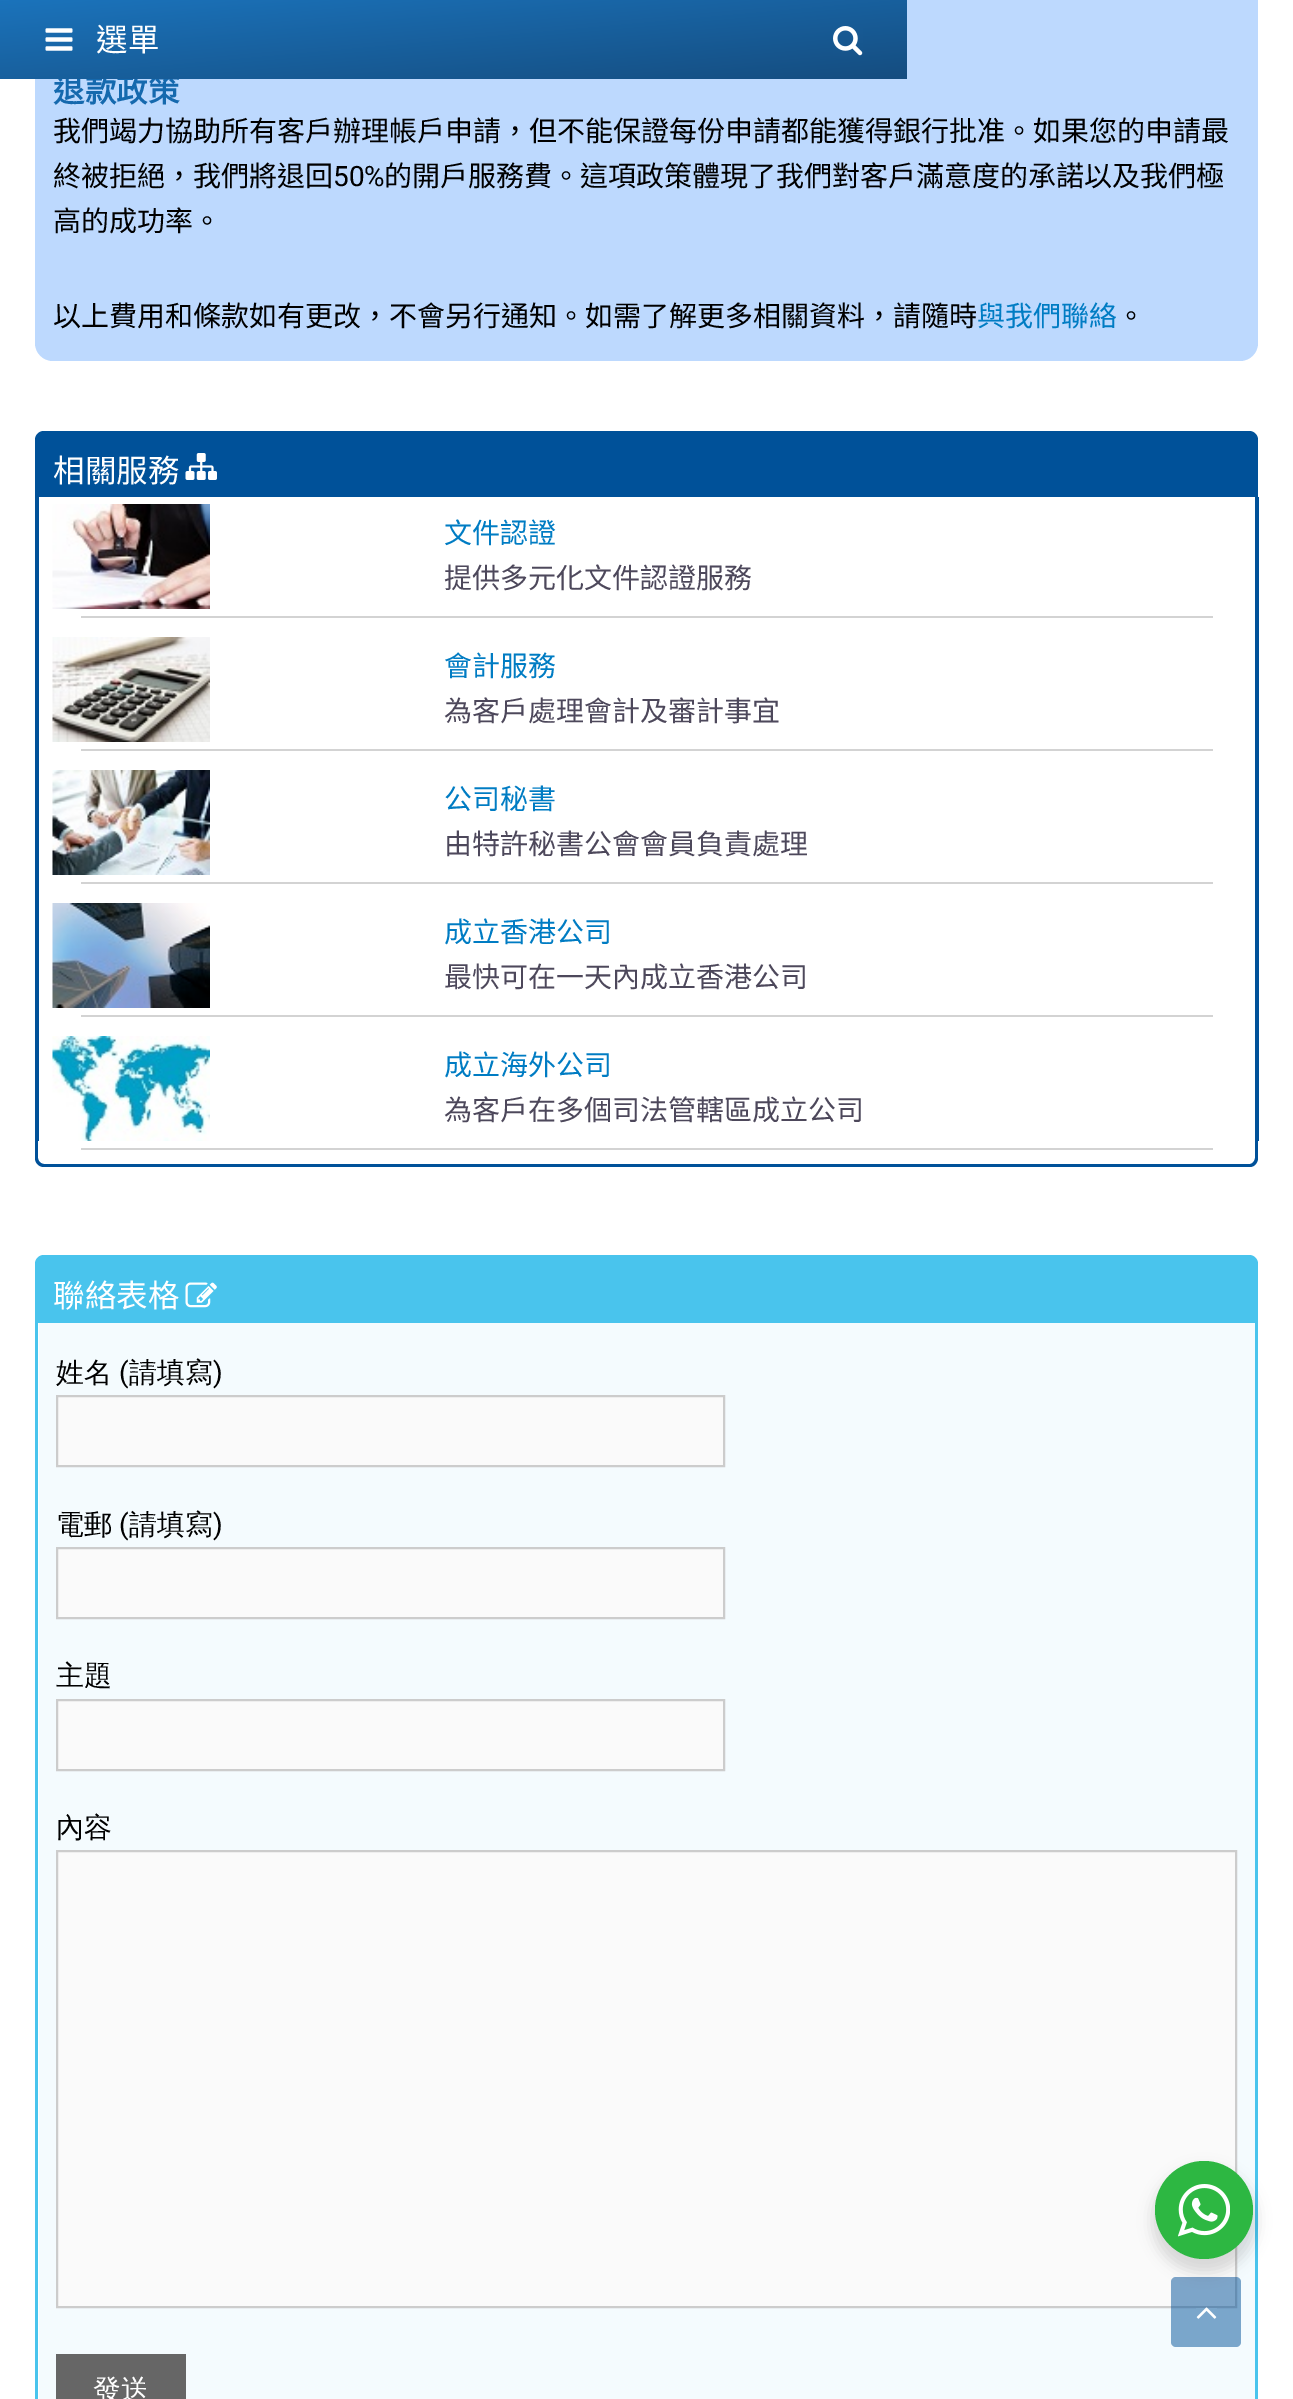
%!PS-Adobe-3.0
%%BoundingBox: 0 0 1293 2399
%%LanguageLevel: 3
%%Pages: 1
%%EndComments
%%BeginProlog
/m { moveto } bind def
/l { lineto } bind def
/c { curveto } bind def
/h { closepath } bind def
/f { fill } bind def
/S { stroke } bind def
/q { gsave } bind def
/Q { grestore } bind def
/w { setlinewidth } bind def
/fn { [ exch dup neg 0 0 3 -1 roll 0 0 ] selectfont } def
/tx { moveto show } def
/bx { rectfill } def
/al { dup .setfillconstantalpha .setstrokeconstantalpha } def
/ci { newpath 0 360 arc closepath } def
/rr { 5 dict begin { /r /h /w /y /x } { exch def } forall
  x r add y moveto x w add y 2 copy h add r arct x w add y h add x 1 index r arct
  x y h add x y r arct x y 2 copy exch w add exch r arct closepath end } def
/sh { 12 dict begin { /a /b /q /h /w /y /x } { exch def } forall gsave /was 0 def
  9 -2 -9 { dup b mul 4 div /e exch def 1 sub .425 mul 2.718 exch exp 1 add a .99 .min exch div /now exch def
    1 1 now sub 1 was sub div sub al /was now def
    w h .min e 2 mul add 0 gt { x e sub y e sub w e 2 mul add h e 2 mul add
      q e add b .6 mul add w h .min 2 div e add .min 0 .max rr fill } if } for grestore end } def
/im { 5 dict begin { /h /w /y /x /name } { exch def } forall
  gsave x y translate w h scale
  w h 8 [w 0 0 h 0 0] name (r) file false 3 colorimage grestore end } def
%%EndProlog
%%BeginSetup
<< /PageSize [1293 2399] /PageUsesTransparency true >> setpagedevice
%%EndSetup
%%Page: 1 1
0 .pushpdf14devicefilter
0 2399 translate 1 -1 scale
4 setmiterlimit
1 setgray
0 0 1293 2399 bx
0.741 0.851 0.996 setrgbcolor
35 -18 1223 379 18 rr f
/NotoSansCJKHK-Bold 31.5 fn
0.082 0.412 0.682 setrgbcolor
(退款政策) 53 102 tx
q 0 0 m 907 0 l 907 79 l 0 79 l h clip newpath
<< /ShadingType 2 /ColorSpace /DeviceRGB /Coords [446 -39 460 118] /Extend [true true] /Function << /FunctionType 2 /Domain [0 1] /C0 [0.106 0.451 0.733] /C1 [0.082 0.302 0.502] /N 1 >> >> shfill Q
(image0.raw) 45 28 28 23 im
/NotoSansCJKHK-Regular 31.5 fn
1 setgray
(選單) 96 51 tx
(image1.raw) 833 26 30 30 im
0.957 0.984 0.996 setrgbcolor
39 1323 1216 1076 bx
/NotoSansCJKHK-Regular 28 fn
0 setgray
(我們竭力協助所有客戶辦理帳戶申請，但不能保證每份申請都能獲得銀行批准。如果您的申請最) 53 141 tx
(終被拒絕，我們將退回) 53 186 tx
/Roboto-Regular 28 fn
(50%) 333 186 tx
/NotoSansCJKHK-Regular 28 fn
(的開戶服務費。這項政策體現了我們對客戶滿意度的承諾以及我們極) 384 186 tx
(高的成功率。) 53 231 tx
(以上費用和條款如有更改，不會另行通知。如需了解更多相關資料，請隨時) 53 326 tx
0 0.486 0.765 setrgbcolor
(與我們聯絡) 977 326 tx
0 setgray
(。) 1117 326 tx
0 0.318 0.6 setrgbcolor
44 431 m 1249 431 l 1254 431 1258 435 1258 440 c 1258 497 l 35 497 l 35 440 l 35 435 39 431 44 431 c h f
/NotoSansCJKHK-Regular 31.5 fn
1 setgray
(相關服務) 53 482 tx
(image2.raw) 185 453 32 27 im
0 0.318 0.6 setrgbcolor
1255 497 4 644 bx
35 497 4 644 bx
(image3.raw) 52 504 158 105 im
/NotoSansCJKHK-Regular 28 fn
0 0.486 0.765 setrgbcolor
(文件認證) 444 543 tx
0.302 0.282 0.357 setrgbcolor
(提供多元化文件認證服務) 444 588 tx
0.827 setgray
81 616 1132 2 bx
(image4.raw) 52 637 158 105 im
0 0.486 0.765 setrgbcolor
(會計服務) 444 676 tx
0.302 0.282 0.357 setrgbcolor
(為客戶處理會計及審計事宜) 444 721 tx
0.827 setgray
81 749 1132 2 bx
(image5.raw) 52 770 158 105 im
0 0.486 0.765 setrgbcolor
(公司秘書) 444 809 tx
0.302 0.282 0.357 setrgbcolor
(由特許秘書公會會員負責處理) 444 854 tx
0.827 setgray
81 882 1132 2 bx
(image6.raw) 52 903 158 105 im
0 0.486 0.765 setrgbcolor
(成立香港公司) 444 942 tx
0.302 0.282 0.357 setrgbcolor
(最快可在一天內成立香港公司) 444 987 tx
0.827 setgray
81 1015 1132 2 bx
(image7.raw) 52 1036 158 105 im
0 0.486 0.765 setrgbcolor
(成立海外公司) 444 1075 tx
0.302 0.282 0.357 setrgbcolor
(為客戶在多個司法管轄區成立公司) 444 1120 tx
0 0.318 0.6 setrgbcolor
35 1134 m 1258 1134 l 1258 1158 l 1258 1163 1254 1167 1250 1167 c 44 1167 l 39 1167 35 1163 35 1158 c h 38 1134 m 1255 1134 l 1255 1158 l 1255 1161 1252 1164 1250 1164 c 44 1164 l 41 1164 38 1161 38 1158 c h eofill
0.827 setgray
81 1148 1132 2 bx
0.286 0.769 0.929 setrgbcolor
44 1255 m 1249 1255 l 1254 1255 1258 1259 1258 1264 c 1258 1323 l 35 1323 l 35 1264 l 35 1259 39 1255 44 1255 c h f
/NotoSansCJKHK-Regular 31.5 fn
1 setgray
(聯絡表格) 53 1307 tx
(image8.raw) 185 1282 32 26 im
0.286 0.769 0.929 setrgbcolor
35 1316 m 1258 1316 l 1258 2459 l 1258 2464 1254 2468 1250 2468 c 44 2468 l 39 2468 35 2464 35 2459 c h 38 1316 m 1255 1316 l 1255 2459 l 1255 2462 1252 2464 1250 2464 c 44 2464 l 41 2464 38 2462 38 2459 c h eofill
/WenQuanYiZenHei-Medium 28 fn
0 setgray
(姓名) 56 1382 tx
/Roboto-Regular 28 fn
(\() 119 1382 tx
/WenQuanYiZenHei-Medium 28 fn
(請填寫) 129 1382 tx
/Roboto-Regular 28 fn
(\)) 213 1382 tx
0.98 setgray
57 1396 m 724 1396 l 724 1466 l 57 1466 l h q f Q
0.8 setgray
2 w
S
/WenQuanYiZenHei-Medium 28 fn
0 setgray
(電郵) 56 1534 tx
/Roboto-Regular 28 fn
(\() 119 1534 tx
/WenQuanYiZenHei-Medium 28 fn
(請填寫) 129 1534 tx
/Roboto-Regular 28 fn
(\)) 213 1534 tx
0.98 setgray
57 1548 m 724 1548 l 724 1618 l 57 1618 l h q f Q
0.8 setgray
S
/WenQuanYiZenHei-Medium 28 fn
0 setgray
(主題) 56 1685 tx
0.98 setgray
57 1700 m 724 1700 l 724 1770 l 57 1770 l h q f Q
0.8 setgray
S
0 setgray
(內容) 56 1837 tx
0.98 setgray
57 1851 m 1236 1851 l 1236 2307 l 57 2307 l h q f Q
0.8 setgray
S
0.4 setgray
56 2354 130 45 bx
1 setgray
(發送) 93 2399 tx
0.5 al
0 0.318 0.6 setrgbcolor
1171 2277 70 70 5 rr f
1 al
0 setgray
1152 2168 105 105 52.5 7 0.14 sh
0.176 0.718 0.259 setrgbcolor
1204 2210 49 ci f
(image9.raw) 1178 2184 52 53 im
(image10.raw) 1196 2307 21 12 im
.poppdf14devicefilter showpage
%%EOF
